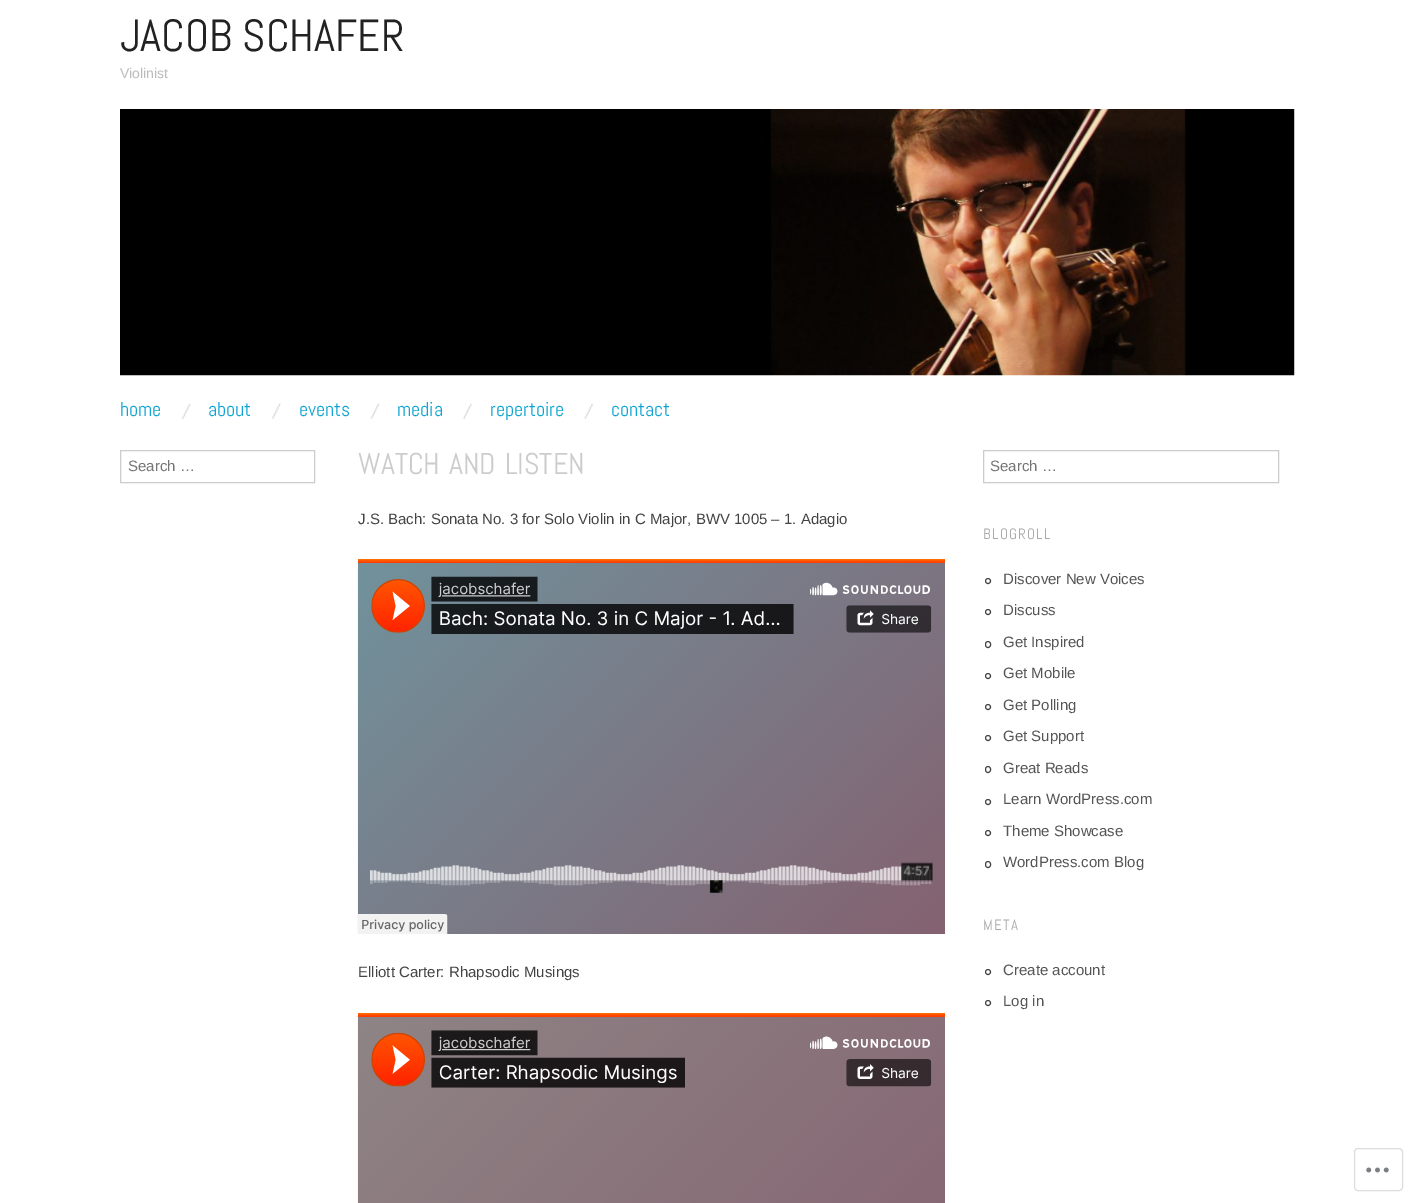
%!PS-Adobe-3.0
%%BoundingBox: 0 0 1414 1203
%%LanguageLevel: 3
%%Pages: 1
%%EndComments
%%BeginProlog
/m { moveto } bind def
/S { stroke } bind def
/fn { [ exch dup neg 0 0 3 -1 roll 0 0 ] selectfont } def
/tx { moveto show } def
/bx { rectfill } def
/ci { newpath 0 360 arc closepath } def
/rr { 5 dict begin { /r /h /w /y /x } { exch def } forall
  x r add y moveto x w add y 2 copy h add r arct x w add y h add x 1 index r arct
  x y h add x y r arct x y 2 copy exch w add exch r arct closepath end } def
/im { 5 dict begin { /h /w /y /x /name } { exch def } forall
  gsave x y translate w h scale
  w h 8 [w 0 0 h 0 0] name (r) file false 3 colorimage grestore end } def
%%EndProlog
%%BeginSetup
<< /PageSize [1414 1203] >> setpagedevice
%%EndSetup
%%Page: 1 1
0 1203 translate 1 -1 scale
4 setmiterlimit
1 setgray
0 0 1414 1203 bx
/Abel-Regular 45 fn
0.133 setgray
(JACOB SCHAFER) 120 51 tx
/LiberationSans-Regular 14 fn
0.733 setgray
(Violinist) 120 78 tx
(image0.raw) 120 109 1175 267 im
/Abel-Regular 20 fn
0.051 0.643 0.827 setrgbcolor
(home) 120 416 tx
(image1.raw) 181 403 10 16 im
(about) 208 416 tx
(image1.raw) 271 403 10 16 im
(events) 299 416 tx
(image2.raw) 370 403 10 16 im
(media) 397 416 tx
(image3.raw) 462 403 11 16 im
(repertoire) 490 416 tx
(image4.raw) 584 403 10 16 im
(contact) 611 416 tx
0.8 setgray
120.5 450.5 194 32 rectstroke
/LiberationSans-Regular 15 fn
0.459 setgray
(Search …) 128 471 tx
/Abel-Regular 30 fn
0.8 setgray
358 474 m 2 0 32 (WATCH AND LISTEN) widthshow
/LiberationSans-Regular 15 fn
0.267 setgray
(J.S. Bach: Sonata No. 3 for Solo Violin in C Major, BWV 1005 – 1. Adagio) 358 524 tx
(image5.raw) 357 559 588 375 im
(Elliott Carter: Rhapsodic Musings) 358 977 tx
(image6.raw) 357 1013 588 190 im
0.8 setgray
983.5 450.5 295 32 rectstroke
0.459 setgray
(Search …) 990 471 tx
/Abel-Regular 15 fn
0.667 setgray
983 539 m 1.25 0 (BLOGROLL) ashow
0.267 setgray
988 581 2.5 ci S
/LiberationSans-Regular 15 fn
0.333 setgray
(Discover New Voices) 1003 584 tx
0.267 setgray
988 612 2.5 ci S
0.333 setgray
(Discuss) 1003 615 tx
0.267 setgray
985.5 641.5 5 6 2.5 rr S
0.333 setgray
(Get Inspired) 1003 647 tx
0.267 setgray
988 676 2.5 ci S
0.333 setgray
(Get Mobile) 1003 678 tx
0.267 setgray
988 707 2.5 ci S
0.333 setgray
(Get Polling) 1003 710 tx
0.267 setgray
988 738 2.5 ci S
0.333 setgray
(Get Support) 1003 741 tx
0.267 setgray
985.5 766.5 5 6 2.5 rr S
0.333 setgray
(Great Reads) 1003 773 tx
0.267 setgray
988 802 2.5 ci S
0.333 setgray
(Learn WordPress.com) 1003 804 tx
0.267 setgray
988 833 2.5 ci S
0.333 setgray
(Theme Showcase) 1003 836 tx
0.267 setgray
985.5 861.5 5 6 2.5 rr S
0.333 setgray
(WordPress.com Blog) 1003 867 tx
/Abel-Regular 15 fn
0.667 setgray
983 930 m 1.25 0 (META) ashow
0.267 setgray
988 972 2.5 ci S
/LiberationSans-Regular 15 fn
0.333 setgray
(Create account) 1003 975 tx
0.267 setgray
988 1003 2.5 ci S
0.333 setgray
(Log in) 1003 1006 tx
0.867 0.867 0.875 setrgbcolor
1354.5 1148.5 48 42 3.5 rr S
(image7.raw) 1366 1167 23 6 im
showpage
%%EOF
